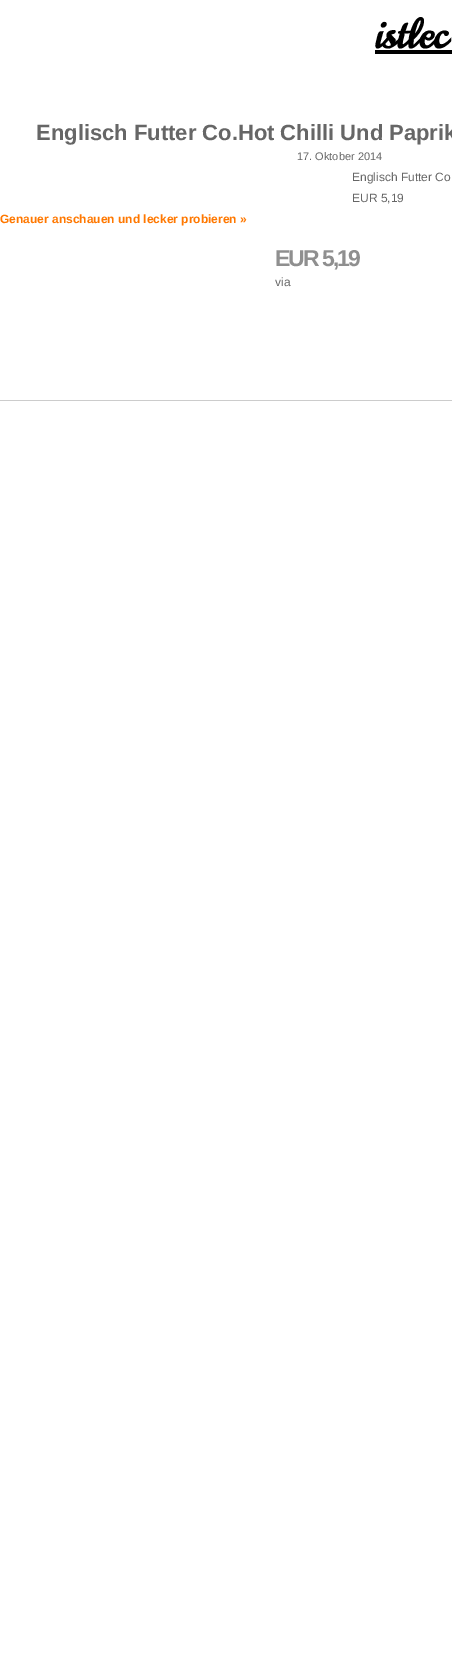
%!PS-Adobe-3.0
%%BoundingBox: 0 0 452 1664
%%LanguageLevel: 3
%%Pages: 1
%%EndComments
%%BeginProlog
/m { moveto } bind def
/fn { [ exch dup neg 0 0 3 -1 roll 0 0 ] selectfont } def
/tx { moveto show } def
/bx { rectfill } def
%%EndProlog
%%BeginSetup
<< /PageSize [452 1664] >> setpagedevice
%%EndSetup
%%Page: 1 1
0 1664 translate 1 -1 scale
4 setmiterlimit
1 setgray
0 0 452 1664 bx
/Norican-Bold 40 fn
0 setgray
(istlec) 375 48 tx
375 50 77 4 bx
/LiberationSans-Bold 22 fn
0.4 setgray
(Englisch Futter Co.Hot Chilli Und Paprik) 36 140 tx
/LiberationSans-Regular 11 fn
(17. Oktober 2014) 297 160 tx
/LiberationSans-Regular 12 fn
(Englisch Futter Co) 352 181 tx
(EUR 5,19) 352 202 tx
/LiberationSans-Bold 12 fn
1 0.471 0 setrgbcolor
(Genauer anschauen und lecker probieren ») 0 223 tx
/LiberationSans-Bold 23 fn
0.561 setgray
275 266 m -2 0 (EUR 5,19) ashow
/LiberationSans-Regular 12 fn
0.4 setgray
(via) 275 286 tx
0.8 setgray
0 400 452 1 bx
showpage
%%EOF
